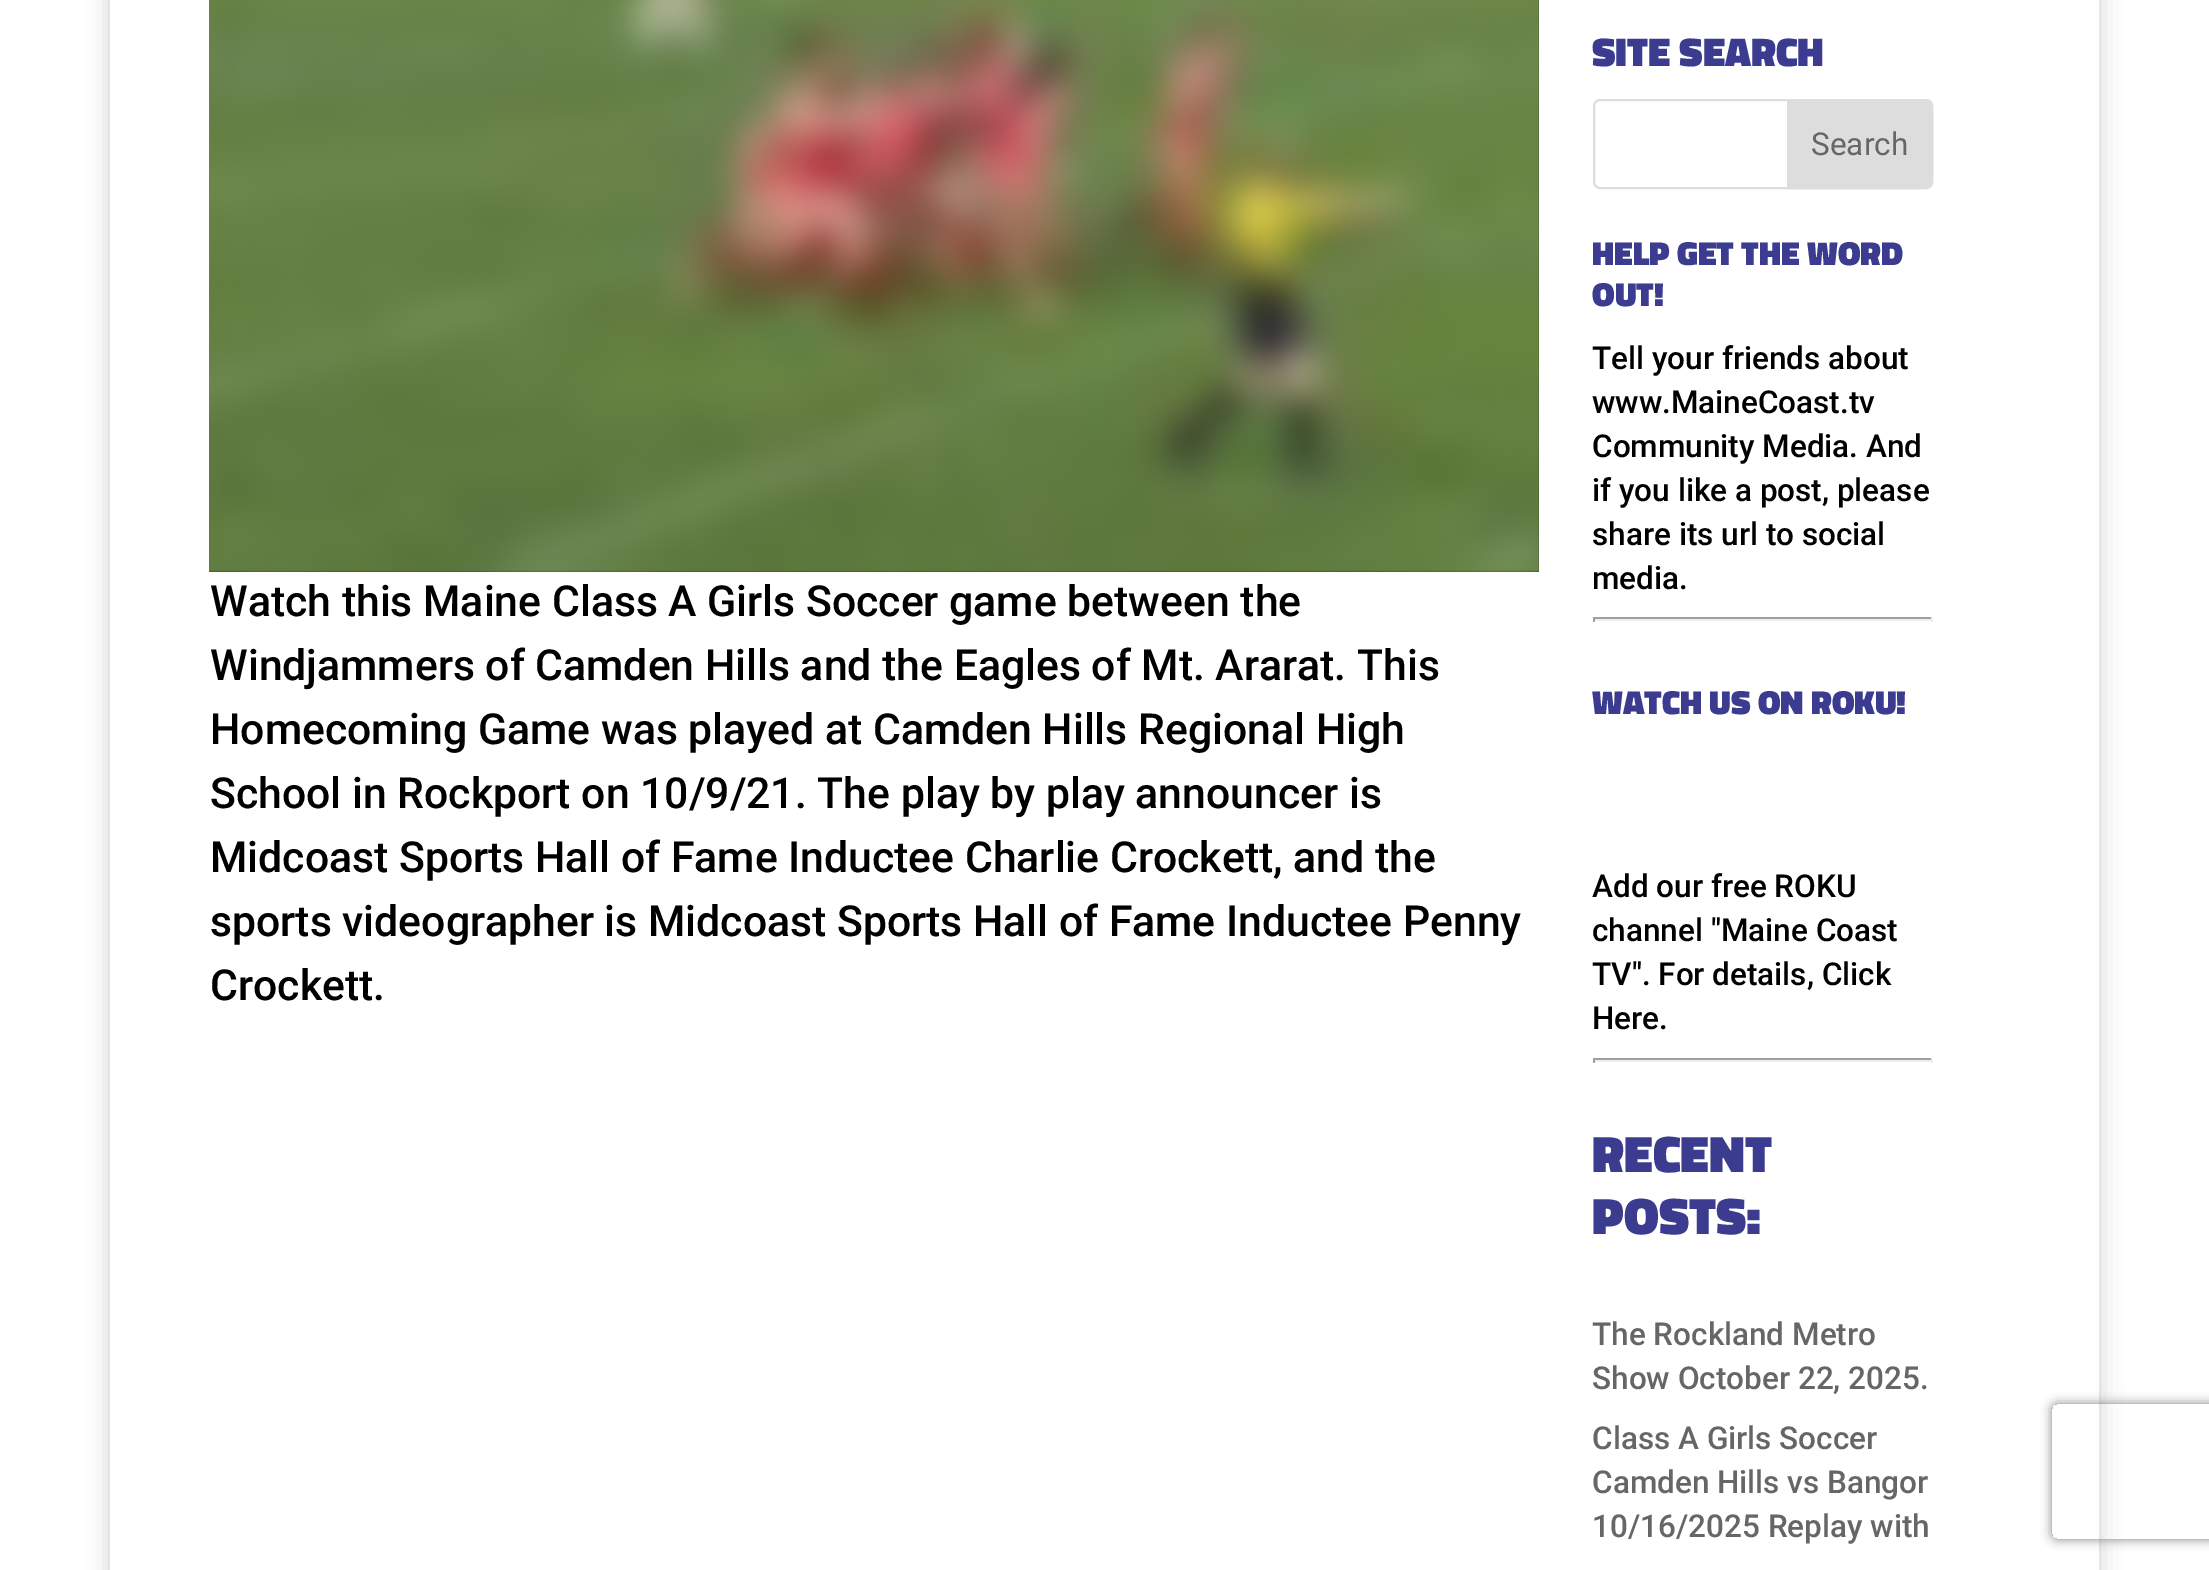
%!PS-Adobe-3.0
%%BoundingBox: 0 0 2209 1570
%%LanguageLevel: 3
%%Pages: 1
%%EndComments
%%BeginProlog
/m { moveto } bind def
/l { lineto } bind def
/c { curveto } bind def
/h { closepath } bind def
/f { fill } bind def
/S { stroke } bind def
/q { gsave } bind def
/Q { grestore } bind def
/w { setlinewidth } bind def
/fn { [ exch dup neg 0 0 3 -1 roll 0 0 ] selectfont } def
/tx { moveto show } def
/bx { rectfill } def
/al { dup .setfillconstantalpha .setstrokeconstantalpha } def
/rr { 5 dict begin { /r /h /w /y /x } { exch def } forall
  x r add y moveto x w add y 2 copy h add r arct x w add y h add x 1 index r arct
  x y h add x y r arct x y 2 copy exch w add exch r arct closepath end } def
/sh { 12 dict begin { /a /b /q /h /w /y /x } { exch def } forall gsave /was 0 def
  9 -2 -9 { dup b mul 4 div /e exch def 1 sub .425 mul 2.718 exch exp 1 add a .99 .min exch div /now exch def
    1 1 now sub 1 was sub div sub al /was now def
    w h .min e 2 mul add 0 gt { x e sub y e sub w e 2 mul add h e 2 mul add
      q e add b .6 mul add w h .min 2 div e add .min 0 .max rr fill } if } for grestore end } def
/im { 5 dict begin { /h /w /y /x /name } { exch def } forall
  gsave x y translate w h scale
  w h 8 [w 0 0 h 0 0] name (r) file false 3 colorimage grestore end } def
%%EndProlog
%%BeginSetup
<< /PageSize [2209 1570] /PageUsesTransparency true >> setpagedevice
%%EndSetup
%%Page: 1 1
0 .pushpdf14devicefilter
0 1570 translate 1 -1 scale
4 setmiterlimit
1 setgray
0 0 2209 1570 bx
0 setgray
110 -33 1989 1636 0 11 0.2 sh
1 setgray
110 0 1989 1570 bx
(image0.raw) 209 0 1330 572 im
/Roboto-Medium 42.75 fn
0 setgray
(Watch this Maine Class A Girls Soccer game between the) 210 616 tx
(Windjammers of Camden Hills and the Eagles of Mt. Ararat. This) 210 680 tx
(Homecoming Game was played at Camden Hills Regional High) 210 744 tx
(School in Rockport on 10/9/21. The play by play announcer is) 210 808 tx
(Midcoast Sports Hall of Fame Inductee Charlie Crockett, and the) 210 872 tx
(sports videographer is Midcoast Sports Hall of Fame Inductee Penny) 210 936 tx
(Crockett.) 210 1000 tx
/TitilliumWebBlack-Black 40.5 fn
0.231 0.235 0.561 setrgbcolor
(SITE SEARCH) 1592 66 tx
0.867 setgray
2 w
1594 100 338 88 6 rr S
1788 100 m 1926 100 l 1929.5 100 1932 102.5 1932 106 c 1932 182 l 1932 185.5 1929.5 188 1926 188 c 1788 188 l h q f Q
S
/Roboto-Regular 31.5 fn
0.4 setgray
(Search) 1811 155 tx
/TitilliumWebBlack-Black 33.75 fn
0.231 0.235 0.561 setrgbcolor
(HELP GET THE WORD) 1592 265 tx
(OUT!) 1592 306 tx
/Roboto-Medium 31.5 fn
0 setgray
(Tell your friends about) 1592 369 tx
(www.MaineCoast.tv) 1592 413 tx
(Community Media. And) 1592 457 tx
(if you like a post, please) 1592 501 tx
(share its url to social) 1592 545 tx
(media.) 1592 589 tx
0.624 setgray
1593 617 340 2 bx
0.933 setgray
1931 617 2 5 bx
1593 619 340 2 bx
0.624 setgray
1593 617 2 5 bx
/TitilliumWebBlack-Black 33.75 fn
0.231 0.235 0.561 setrgbcolor
(WATCH US ON ROKU!) 1592 714 tx
/Roboto-Medium 31.5 fn
0 setgray
(Add our free ROKU) 1592 897 tx
(channel "Maine Coast) 1592 941 tx
(TV". For details, Click) 1592 985 tx
(Here.) 1592 1029 tx
0.624 setgray
1593 1058 340 2 bx
0.933 setgray
1931 1058 2 5 bx
1593 1060 340 2 bx
0.624 setgray
1593 1058 2 5 bx
/TitilliumWebBlack-Black 52 fn
0.231 0.235 0.561 setrgbcolor
(RECENT) 1592 1172 tx
(POSTS:) 1592 1234 tx
/Roboto-Medium 31.5 fn
0.4 setgray
(The Rockland Metro) 1592 1345 tx
(Show October 22, 2025.) 1592 1389 tx
(Class A Girls Soccer) 1592 1449 tx
(Camden Hills vs Bangor) 1592 1493 tx
(10/16/2025 Replay with) 1592 1537 tx
q
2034 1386 m 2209 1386 l 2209 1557 l 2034 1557 l h 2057 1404 m 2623 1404 l 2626 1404 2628 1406 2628 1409 c 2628 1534 l 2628 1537 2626 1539 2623 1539 c 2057 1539 l 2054 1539 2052 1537 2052 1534 c 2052 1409 l 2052 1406 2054 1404 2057 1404 c h eoclip newpath
0.502 setgray
2052 1404 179 135 5 5.5 1 sh
Q
.poppdf14devicefilter showpage
%%EOF
